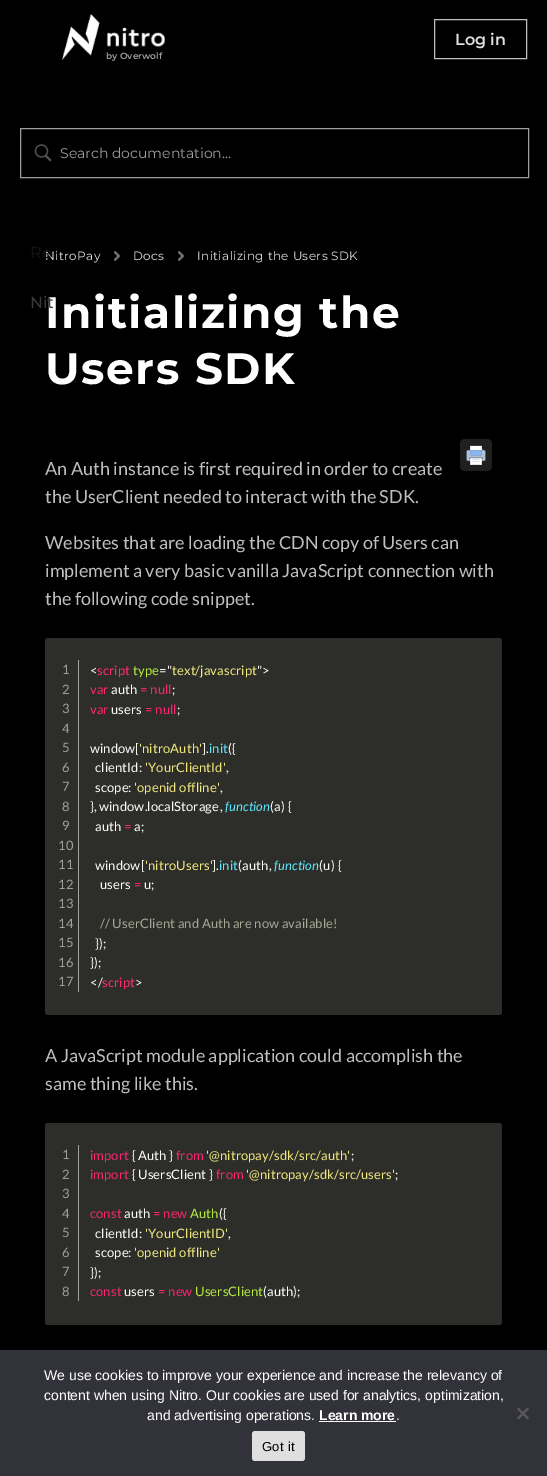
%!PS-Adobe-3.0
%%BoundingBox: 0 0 547 1476
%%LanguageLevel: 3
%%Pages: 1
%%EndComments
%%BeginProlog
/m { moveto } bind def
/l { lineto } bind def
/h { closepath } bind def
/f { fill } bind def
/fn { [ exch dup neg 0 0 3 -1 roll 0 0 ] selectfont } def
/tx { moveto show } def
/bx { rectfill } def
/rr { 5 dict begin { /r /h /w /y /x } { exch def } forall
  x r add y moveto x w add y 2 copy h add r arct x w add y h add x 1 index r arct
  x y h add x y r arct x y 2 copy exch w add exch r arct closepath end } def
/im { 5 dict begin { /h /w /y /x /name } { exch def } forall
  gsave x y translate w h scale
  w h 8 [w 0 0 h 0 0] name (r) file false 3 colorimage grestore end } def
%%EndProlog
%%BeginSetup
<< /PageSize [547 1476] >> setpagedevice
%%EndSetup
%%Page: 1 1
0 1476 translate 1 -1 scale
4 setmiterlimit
0 setgray
0 0 547 1476 bx
0.749 setgray
434.5 19.5 92 39 rectstroke
/Montserrat-SemiBold 16 fn
0.875 setgray
(Log in) 455 45 tx
/Montserrat-Regular 12 fn
45 260 m 0.4 0 (NitroPay) ashow
/Montserrat-Medium 16 fn
0.071 setgray
(Re) 30 258 tx
/Montserrat-Bold 44 fn
1 setgray
45 328 m 1.5 0 (Initializing the) ashow
/Montserrat-Medium 16 fn
0.227 setgray
(Nit) 30 308 tx
(image0.raw) 62 14 103 46 im
/Montserrat-SemiBold 9 fn
0.624 setgray
(by Overwolf) 106 59 tx
20.5 128.5 508 49 rectstroke
(image1.raw) 34 144 18 18 im
/Montserrat-Regular 14 fn
(Search documentation...) 60 158 tx
(image2.raw) 113 251 8 10 im
/Montserrat-Regular 12 fn
0.875 setgray
133 260 m 0.4 0 (Docs) ashow
(image2.raw) 177 251 8 10 im
197 260 m 0.4 0 (Initializing the Users SDK) ashow
/Montserrat-Bold 44 fn
1 setgray
45 384 m 1.5 0 (Users SDK) ashow
0.125 setgray
460 439 32 32 5 rr f
(image3.raw) 466 445 20 20 im
/Lato-Regular 18 fn
0.749 setgray
(An Auth instance is first required in order to create) 45 475 tx
(the UserClient needed to interact with the SDK.) 45 503 tx
(Websites that are loading the CDN copy of Users can) 45 549 tx
(implement a very basic vanilla JavaScript connection with) 45 577 tx
(the following code snippet.) 45 605 tx
0.176 0.18 0.161 setrgbcolor
45 638 457 377 3 rr f
0.639 setgray
78 660 1 332 bx
/Lato-Regular 13 fn
0.624 setgray
(1) 62 674 tx
(2) 62 694 tx
(3) 62 713 tx
(4) 62 733 tx
(5) 62 752 tx
(6) 62 772 tx
(7) 62 791 tx
(8) 62 811 tx
(9) 62 830 tx
(10) 58 850 tx
(11) 58 869 tx
(12) 58 889 tx
(13) 58 908 tx
(14) 58 928 tx
(15) 58 947 tx
(16) 58 967 tx
(17) 58 986 tx
0.973 0.973 0.949 setrgbcolor
90 675 m 0.1 0 (<) ashow
1 0.173 0.471 setrgbcolor
97 675 m 0.1 0 (script) ashow
0.706 0.925 0.263 setrgbcolor
133 675 m 0.1 0 (type) ashow
0.973 0.973 0.949 setrgbcolor
159 675 m 0.1 0 (=") ashow
0.953 0.91 0.502 setrgbcolor
172 675 m 0.1 0 (text/javascript) ashow
0.973 0.973 0.949 setrgbcolor
257 675 m 0.1 0 (">) ashow
0.976 0.149 0.447 setrgbcolor
90 694 m 0.1 0 (var) ashow
1 setgray
111 694 m 0.1 0 (auth) ashow
0.976 0.149 0.447 setrgbcolor
140 694 m 0.1 0 (= null) ashow
0.973 0.973 0.949 setrgbcolor
172 694 m 0.1 0 (;) ashow
0.976 0.149 0.447 setrgbcolor
90 714 m 0.1 0 (var) ashow
1 setgray
111 714 m 0.1 0 (users) ashow
0.976 0.149 0.447 setrgbcolor
145 714 m 0.1 0 (= null) ashow
0.973 0.973 0.949 setrgbcolor
177 714 m 0.1 0 (;) ashow
1 setgray
90 753 m 0.1 0 (window) ashow
0.973 0.973 0.949 setrgbcolor
135 753 m 0.1 0 ([) ashow
0.953 0.91 0.502 setrgbcolor
139 753 m 0.1 0 ('nitroAuth') ashow
0.973 0.973 0.949 setrgbcolor
202 753 m 0.1 0 (].) ashow
0.373 0.902 1 setrgbcolor
209 753 m 0.1 0 (init) ashow
0.973 0.973 0.949 setrgbcolor
228 753 m 0.1 0 (\({) ashow
1 setgray
95 772 m 0.1 0 (clientId) ashow
0.973 0.973 0.949 setrgbcolor
139 772 m 0.1 0 (:) ashow
0.953 0.91 0.502 setrgbcolor
145 772 m 0.1 0 ('YourClientId') ashow
0.973 0.973 0.949 setrgbcolor
226 772 m 0.1 0 (,) ashow
1 setgray
95 792 m 0.1 0 (scope) ashow
0.973 0.973 0.949 setrgbcolor
128 792 m 0.1 0 (:) ashow
0.953 0.91 0.502 setrgbcolor
134 792 m 0.1 0 ('openid offline') ashow
0.973 0.973 0.949 setrgbcolor
220 792 m 0.1 0 (,) ashow
90 811 m 0.1 0 (},) ashow
1 setgray
99 811 m 0.1 0 (window localStorage) ashow
/Lato-Italic 13 fn
0.373 0.902 1 setrgbcolor
225 811 m 0.1 0 (function) ashow
/Lato-Regular 13 fn
0.973 0.973 0.949 setrgbcolor
270 811 m 0.1 0 (\() ashow
1 setgray
274 811 m 0.1 0 (a) ashow
0.973 0.973 0.949 setrgbcolor
281 811 m 0.1 0 (\) {) ashow
145 811 m 0.1 0 (.) ashow
220 811 m 0.1 0 (,) ashow
1 setgray
95 831 m 0.1 0 (auth) ashow
0.976 0.149 0.447 setrgbcolor
124 831 m 0.1 0 (=) ashow
1 setgray
134 831 m 0.1 0 (a) ashow
0.973 0.973 0.949 setrgbcolor
141 831 m 0.1 0 (;) ashow
1 setgray
95 870 m 0.1 0 (window) ashow
0.973 0.973 0.949 setrgbcolor
141 870 m 0.1 0 ([) ashow
0.953 0.91 0.502 setrgbcolor
145 870 m 0.1 0 ('nitroUsers') ashow
0.973 0.973 0.949 setrgbcolor
212 870 m 0.1 0 (].) ashow
0.373 0.902 1 setrgbcolor
219 870 m 0.1 0 (init) ashow
0.973 0.973 0.949 setrgbcolor
238 870 m 0.1 0 (\() ashow
1 setgray
242 870 m 0.1 0 (auth) ashow
0.973 0.973 0.949 setrgbcolor
269 870 m 0.1 0 (,) ashow
/Lato-Italic 13 fn
0.373 0.902 1 setrgbcolor
274 870 m 0.1 0 (function) ashow
/Lato-Regular 13 fn
0.973 0.973 0.949 setrgbcolor
319 870 m 0.1 0 (\() ashow
1 setgray
323 870 m 0.1 0 (u) ashow
0.973 0.973 0.949 setrgbcolor
331 870 m 0.1 0 (\) {) ashow
1 setgray
100 889 m 0.1 0 (users) ashow
0.976 0.149 0.447 setrgbcolor
134 889 m 0.1 0 (=) ashow
1 setgray
144 889 m 0.1 0 (u) ashow
0.973 0.973 0.949 setrgbcolor
151 889 m 0.1 0 (;) ashow
0.659 0.659 0.592 setrgbcolor
100 928 m 0.1 0 (// UserClient and Auth are now available!) ashow
0.973 0.973 0.949 setrgbcolor
95 948 m 0.1 0 (}\);) ashow
90 967 m 0.1 0 (}\);) ashow
90 987 m 0.1 0 (</) ashow
1 0.173 0.471 setrgbcolor
102 987 m 0.1 0 (script) ashow
0.973 0.973 0.949 setrgbcolor
135 987 m 0.1 0 (>) ashow
/Lato-Regular 18 fn
0.749 setgray
(A JavaScript module application could accomplish the) 45 1062 tx
(same thing like this.) 45 1090 tx
0.176 0.18 0.161 setrgbcolor
45 1123 457 202 3 rr f
0.639 setgray
78 1145 1 156 bx
/Lato-Regular 13 fn
0.624 setgray
(1) 62 1159 tx
(2) 62 1179 tx
(3) 62 1198 tx
(4) 62 1218 tx
(5) 62 1237 tx
(6) 62 1257 tx
(7) 62 1276 tx
(8) 62 1296 tx
0.976 0.149 0.447 setrgbcolor
90 1160 m 0.1 0 (import) ashow
0.973 0.973 0.949 setrgbcolor
132 1160 m 0.1 0 ({) ashow
1 setgray
138 1160 m 0.1 0 (Auth) ashow
0.973 0.973 0.949 setrgbcolor
169 1160 m 0.1 0 (}) ashow
0.976 0.149 0.447 setrgbcolor
176 1160 m 0.1 0 (from) ashow
0.953 0.91 0.502 setrgbcolor
206 1160 m 0.1 0 ('@nitropay/sdk/src/auth') ashow
0.973 0.973 0.949 setrgbcolor
351 1160 m 0.1 0 (;) ashow
0.976 0.149 0.447 setrgbcolor
90 1179 m 0.1 0 (import) ashow
0.973 0.973 0.949 setrgbcolor
132 1179 m 0.1 0 ({) ashow
1 setgray
138 1179 m 0.1 0 (UsersClient) ashow
0.973 0.973 0.949 setrgbcolor
209 1179 m 0.1 0 (}) ashow
0.976 0.149 0.447 setrgbcolor
216 1179 m 0.1 0 (from) ashow
0.953 0.91 0.502 setrgbcolor
246 1179 m 0.1 0 ('@nitropay/sdk/src/users') ashow
0.973 0.973 0.949 setrgbcolor
395 1179 m 0.1 0 (;) ashow
0.976 0.149 0.447 setrgbcolor
90 1218 m 0.1 0 (const) ashow
1 setgray
124 1218 m 0.1 0 (auth) ashow
0.976 0.149 0.447 setrgbcolor
153 1218 m 0.1 0 (= new) ashow
0.706 0.925 0.263 setrgbcolor
190 1218 m 0.1 0 (Auth) ashow
0.973 0.973 0.949 setrgbcolor
219 1218 m 0.1 0 (\({) ashow
1 setgray
95 1238 m 0.1 0 (clientId) ashow
0.973 0.973 0.949 setrgbcolor
139 1238 m 0.1 0 (:) ashow
0.953 0.91 0.502 setrgbcolor
145 1238 m 0.1 0 ('YourClientID') ashow
0.973 0.973 0.949 setrgbcolor
228 1238 m 0.1 0 (,) ashow
1 setgray
95 1257 m 0.1 0 (scope) ashow
0.973 0.973 0.949 setrgbcolor
128 1257 m 0.1 0 (:) ashow
0.953 0.91 0.502 setrgbcolor
134 1257 m 0.1 0 ('openid offline') ashow
0.973 0.973 0.949 setrgbcolor
90 1277 m 0.1 0 (}\);) ashow
0.976 0.149 0.447 setrgbcolor
90 1296 m 0.1 0 (const) ashow
1 setgray
124 1296 m 0.1 0 (users) ashow
0.976 0.149 0.447 setrgbcolor
158 1296 m 0.1 0 (= new) ashow
0.706 0.925 0.263 setrgbcolor
195 1296 m 0.1 0 (UsersClient) ashow
0.973 0.973 0.949 setrgbcolor
263 1296 m 0.1 0 (\() ashow
1 setgray
267 1296 m 0.1 0 (auth) ashow
0.973 0.973 0.949 setrgbcolor
293 1296 m 0.1 0 (\);) ashow
0.196 0.196 0.227 setrgbcolor
0 1350 547 126 bx
/LiberationSans-Regular 14 fn
1 setgray
(We use cookies to improve your experience and increase the relevancy of) 44 1380 tx
(content when using Nitro. Our cookies are used for analytics, optimization,) 44 1400 tx
(and advertising operations.) 147 1420 tx
/LiberationSans-Bold 14 fn
(Learn more) 319 1420 tx
319 1421 77 1 bx
/LiberationSans-Regular 14 fn
(.) 396 1420 tx
0.349 0.349 0.365 setrgbcolor
527.5 1407.5 m 529 1409 l 518.5 1419.5 l 517 1418 l h f
517 1409 m 518.5 1407.5 l 529 1418 l 527.5 1419.5 l h f
0.875 setgray
252 1431 53 30 3 rr f
/LiberationSans-Regular 13 fn
0 setgray
262 1451 m 0.25 0 (Got it) ashow
showpage
%%EOF
